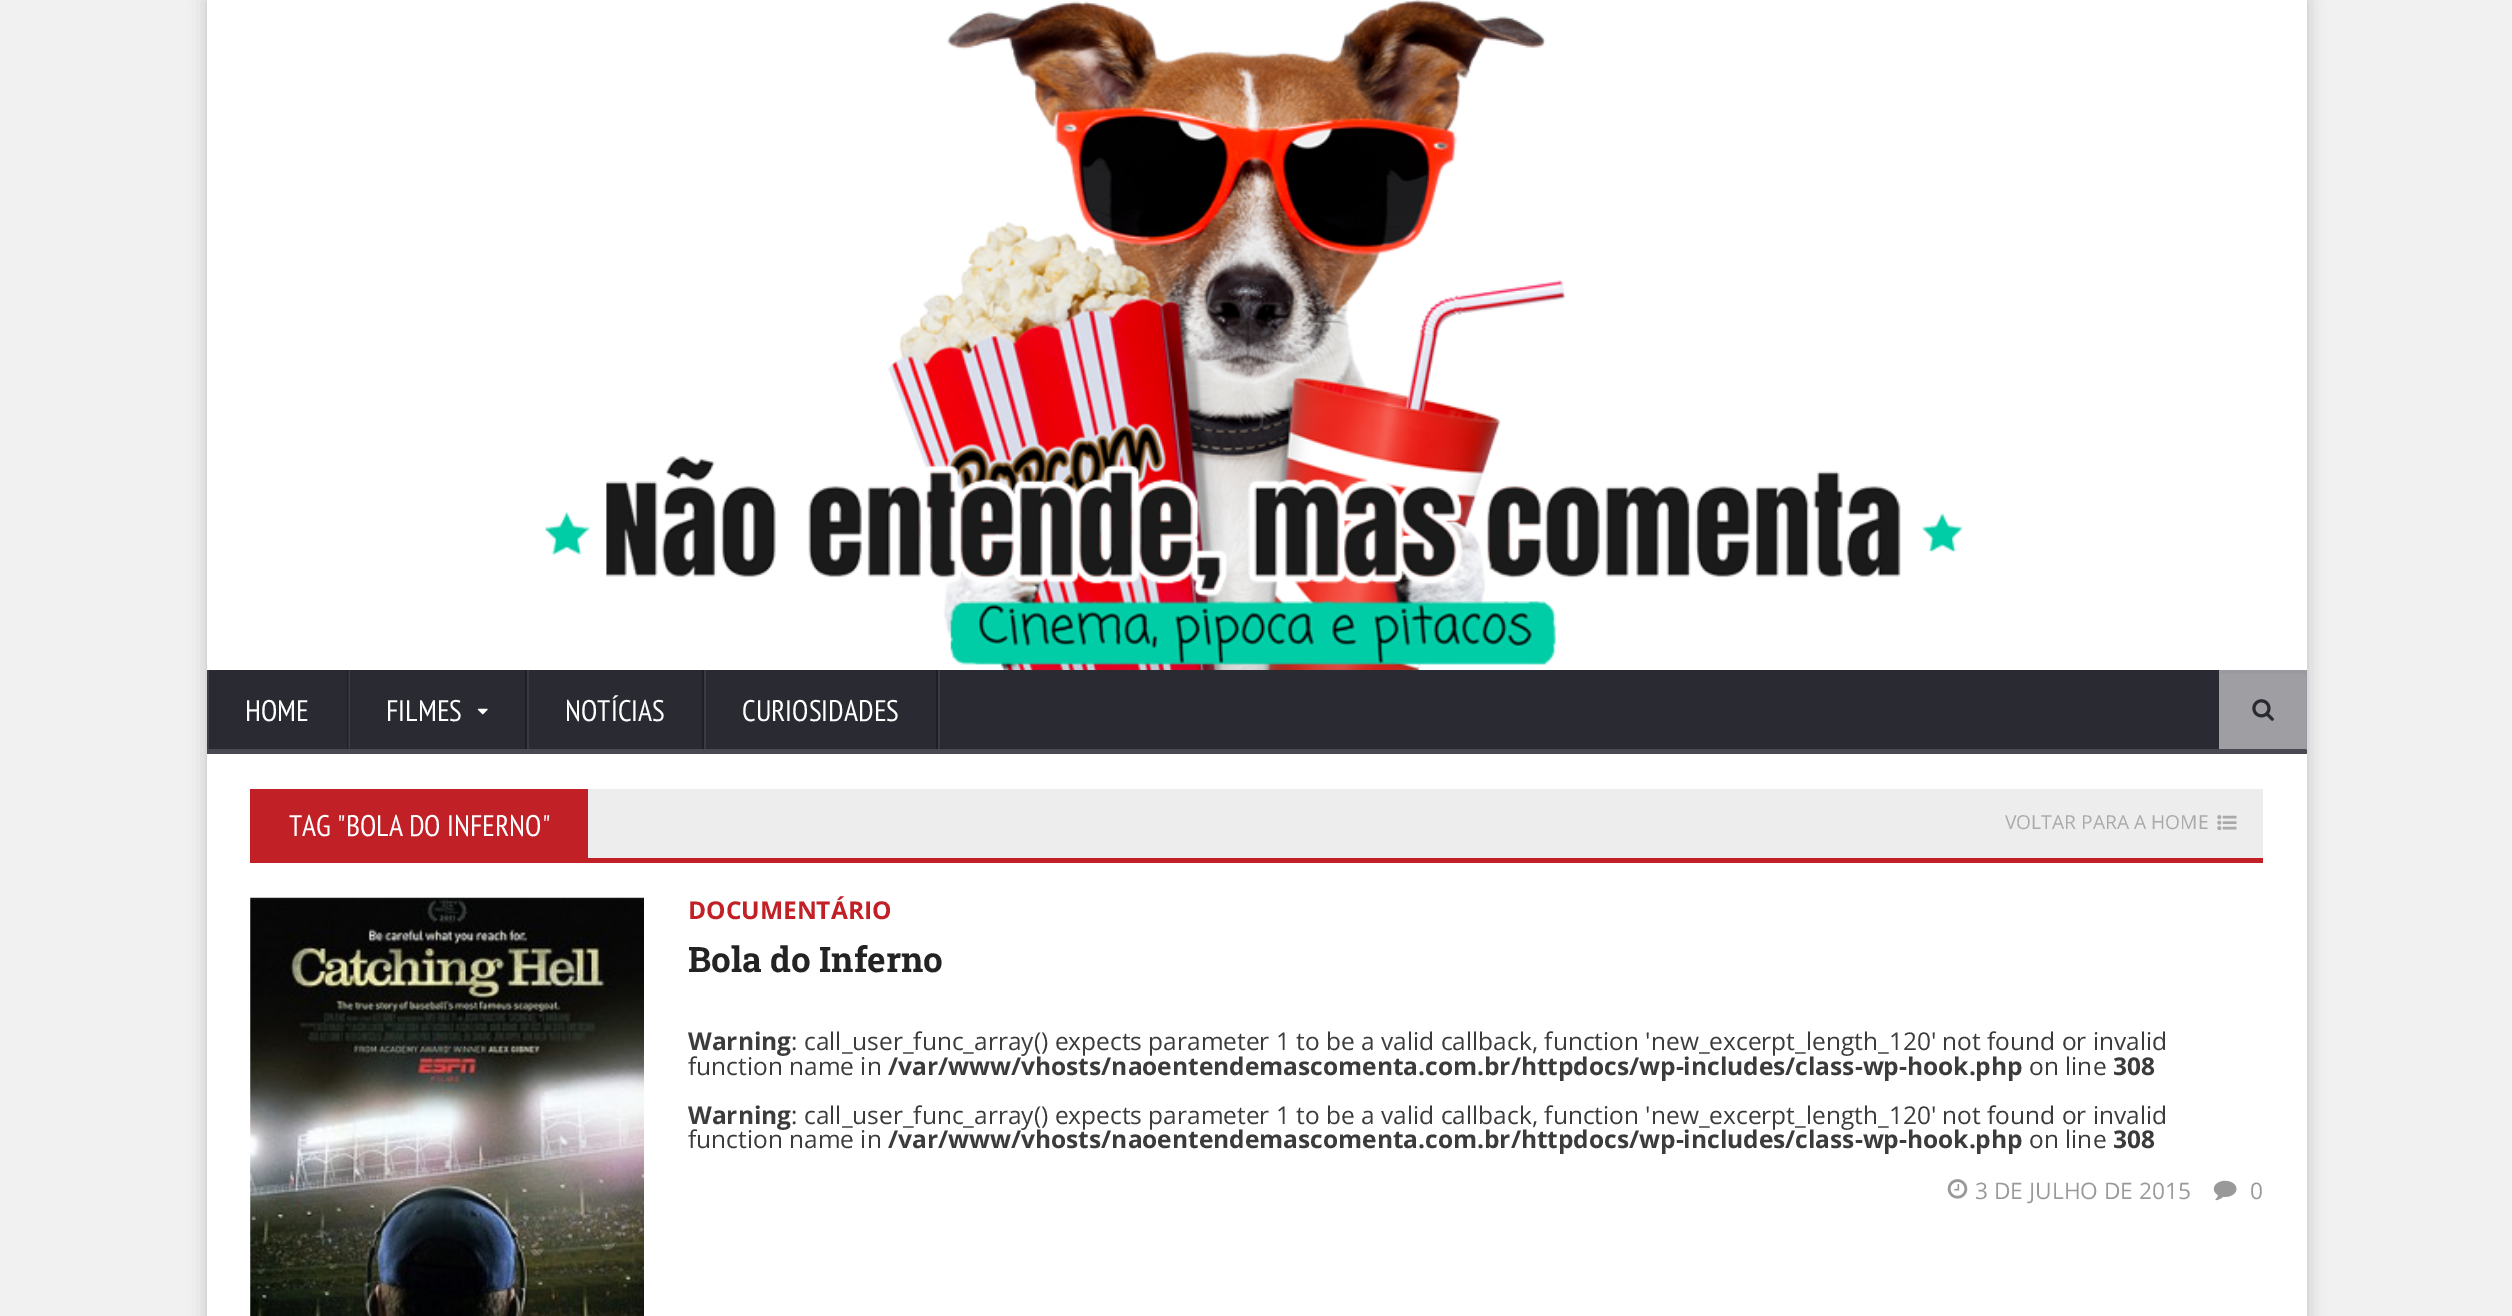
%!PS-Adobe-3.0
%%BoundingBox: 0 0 2512 1316
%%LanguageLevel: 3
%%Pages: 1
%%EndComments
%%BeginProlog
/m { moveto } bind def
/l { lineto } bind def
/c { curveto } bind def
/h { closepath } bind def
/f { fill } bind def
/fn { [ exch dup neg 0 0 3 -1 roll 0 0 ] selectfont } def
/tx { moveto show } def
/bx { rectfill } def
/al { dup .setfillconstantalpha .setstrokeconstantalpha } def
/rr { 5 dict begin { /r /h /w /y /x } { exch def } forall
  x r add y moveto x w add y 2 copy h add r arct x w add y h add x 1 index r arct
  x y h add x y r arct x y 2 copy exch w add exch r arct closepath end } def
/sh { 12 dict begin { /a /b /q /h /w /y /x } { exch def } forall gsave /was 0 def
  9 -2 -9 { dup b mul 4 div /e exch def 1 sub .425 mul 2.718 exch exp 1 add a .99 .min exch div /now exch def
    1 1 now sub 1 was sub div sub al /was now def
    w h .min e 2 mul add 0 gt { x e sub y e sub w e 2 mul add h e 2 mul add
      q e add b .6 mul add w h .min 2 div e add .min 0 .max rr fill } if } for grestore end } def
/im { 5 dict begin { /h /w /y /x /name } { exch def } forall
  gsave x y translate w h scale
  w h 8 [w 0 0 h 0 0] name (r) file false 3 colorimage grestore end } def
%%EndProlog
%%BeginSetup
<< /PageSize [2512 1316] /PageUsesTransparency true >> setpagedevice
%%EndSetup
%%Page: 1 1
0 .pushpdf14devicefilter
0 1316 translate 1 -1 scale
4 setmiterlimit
0.945 setgray
0 0 2512 1316 bx
0 setgray
207 0 2100 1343 0 9 0.2 sh
1 setgray
207 0 2100 1316 bx
(image0.raw) 545 0 1418 670 im
0.161 0.165 0.196 setrgbcolor
209 670 2010 79 bx
0.227 0.231 0.259 setrgbcolor
349 670 1 79 bx
0.286 0.29 0.318 setrgbcolor
207 749 2100 5 bx
0.122 0.125 0.149 setrgbcolor
347 670 1 79 bx
0.192 0.196 0.216 setrgbcolor
348 670 1 79 bx
0.243 0.247 0.275 setrgbcolor
207 670 2 79 bx
/PTSansNarrow-Regular 29.75 fn
1 setgray
(HOME) 245 721 tx
0.122 0.125 0.149 setrgbcolor
525 670 2 79 bx
1 setgray
(FILMES) 386 721 tx
(image1.raw) 477 708 11 7 im
0.122 0.125 0.149 setrgbcolor
702 670 2 79 bx
0.227 0.231 0.259 setrgbcolor
527 670 2 79 bx
1 setgray
(NOTÍCIAS) 565 721 tx
0.227 0.231 0.259 setrgbcolor
705 670 m 938 670 l 938 749 l 940 749 l 940 670 l h f
0.122 0.125 0.149 setrgbcolor
936 670 2 79 bx
0.227 0.231 0.259 setrgbcolor
704 670 2 79 bx
1 setgray
(CURIOSIDADES) 742 721 tx
0.624 0.624 0.639 setrgbcolor
2219 670 88 79 bx
(image2.raw) 2252 699 22 22 im
0.604 0.604 0.62 setrgbcolor
2222 674 m 2303 674 l 2305 674 2306 675 2306 677 c 2306 750 l 2307 749 2307 748 2307 747 c 2307 674 l 2307 672 2305 670 2303 670 c 2223 670 l 2221 670 2219 672 2219 674 c 2219 677 l 2219 675 2221 674 2222 674 c h f
0.929 setgray
588 789 1675 69 bx
0.757 0.125 0.149 setrgbcolor
250 789 338 69 bx
1 setgray
(TAG "BOLA DO INFERNO") 289 836 tx
0.757 0.125 0.149 setrgbcolor
250 858 2013 5 bx
/OpenSans-Regular 19.25 fn
0.667 setgray
(VOLTAR PARA A HOME) 2005 829 tx
(image3.raw) 2217 815 20 16 im
(image4.raw) 250 897 394 419 im
/OpenSans-Bold 24.5 fn
0.757 0.125 0.149 setrgbcolor
(DOCUMENTÁRIO) 688 919 tx
/RobotoSlab-Bold 35 fn
0.137 setgray
(Bola do Inferno) 688 972 tx
/OpenSans-Bold 24.5 fn
0.231 setgray
(Warning) 688 1050 tx
/OpenSans-Regular 24.5 fn
(: call_user_func_array\(\) expects parameter 1 to be a valid callback, function 'new_excerpt_length_120' not found or invalid) 791 1050 tx
(function name in) 688 1075 tx
/OpenSans-Bold 24.5 fn
(/var/www/vhosts/naoentendemascomenta.com.br/httpdocs/wp-includes/class-wp-hook.php) 888 1075 tx
/OpenSans-Regular 24.5 fn
(on line) 2029 1075 tx
/OpenSans-Bold 24.5 fn
(308) 2113 1075 tx
(Warning) 688 1124 tx
/OpenSans-Regular 24.5 fn
(: call_user_func_array\(\) expects parameter 1 to be a valid callback, function 'new_excerpt_length_120' not found or invalid) 791 1124 tx
(function name in) 688 1148 tx
/OpenSans-Bold 24.5 fn
(/var/www/vhosts/naoentendemascomenta.com.br/httpdocs/wp-includes/class-wp-hook.php) 888 1148 tx
/OpenSans-Regular 24.5 fn
(on line) 2029 1148 tx
/OpenSans-Bold 24.5 fn
(308) 2113 1148 tx
(image5.raw) 1947 1179 21 20 im
/OpenSans-Regular 22.75 fn
0.6 setgray
(3 DE JULHO DE 2015) 1975 1199 tx
(image6.raw) 2213 1180 24 21 im
(0) 2250 1199 tx
.poppdf14devicefilter showpage
%%EOF
